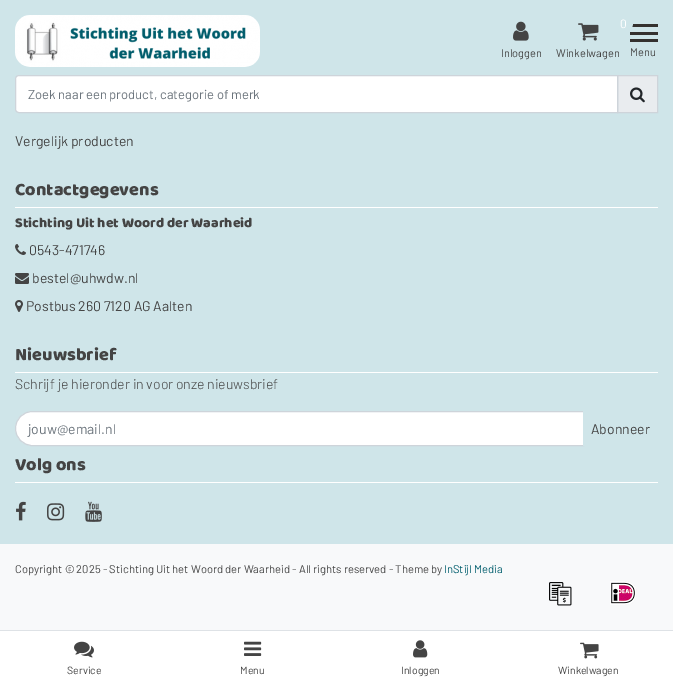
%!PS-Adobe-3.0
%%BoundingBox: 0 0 673 686
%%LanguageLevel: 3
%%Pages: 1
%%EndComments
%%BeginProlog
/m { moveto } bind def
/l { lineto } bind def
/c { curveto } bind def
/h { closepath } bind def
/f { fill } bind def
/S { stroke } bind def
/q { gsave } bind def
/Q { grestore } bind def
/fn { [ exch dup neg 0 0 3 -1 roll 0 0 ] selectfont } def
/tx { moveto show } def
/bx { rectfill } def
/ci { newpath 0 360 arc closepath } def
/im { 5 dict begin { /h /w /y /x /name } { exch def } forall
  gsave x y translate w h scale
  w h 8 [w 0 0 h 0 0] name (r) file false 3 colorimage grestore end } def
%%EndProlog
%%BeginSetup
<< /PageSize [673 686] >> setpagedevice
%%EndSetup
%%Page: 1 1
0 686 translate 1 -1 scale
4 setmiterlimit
0.812 0.898 0.914 setrgbcolor
0 0 673 686 bx
(image0.raw) 15 15 245 52 im
(image1.raw) 513 21 16 20 im
/Barlow-Regular 11 fn
0.267 setgray
(Inloggen) 501 57 tx
(image2.raw) 578 23 21 18 im
0.204 0.192 0.184 setrgbcolor
630 24 28 3 bx
630 32 28 3 bx
0.812 0.898 0.914 setrgbcolor
623 23 10 ci f
/Barlow-Regular 12 fn
1 setgray
(0) 620 28 tx
/Barlow-Regular 11 fn
0.267 setgray
(Winkelwagen) 556 57 tx
0.204 0.192 0.184 setrgbcolor
630 39 28 3 bx
0.267 setgray
(Menu) 630 56 tx
0.914 0.925 0.937 setrgbcolor
617.5 75.5 m 657.5 75.5 l 657.5 112.5 l 617.5 112.5 l h q f Q
0.808 0.831 0.855 setrgbcolor
S
1 setgray
19 75.5 m 617.5 75.5 l 617.5 112.5 l 19 112.5 l 17 112.5 15.5 111 15.5 109 c 15.5 79 l 15.5 77 17 75.5 19 75.5 c h q f Q
0.808 0.831 0.855 setrgbcolor
S
/Barlow-Regular 13 fn
0.424 0.459 0.49 setrgbcolor
(Zoek naar een product, categorie of merk) 28 99 tx
(image3.raw) 630 87 15 16 im
/Barlow-Regular 14 fn
0.267 setgray
(Vergelijk producten) 15 146 tx
1 setgray
15 207 643 1 bx
/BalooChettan-Regular 18 fn
0.267 setgray
(Contactgegevens) 15 195 tx
/BalooChettan-Regular 14 fn
(Stichting Uit het Woord der Waarheid) 15 227 tx
(image4.raw) 15 244 11 11 im
/Barlow-Regular 14 fn
(0543-471746) 29 255 tx
(image5.raw) 15 273 14 11 im
(bestel@uhwdw.nl) 32 283 tx
(image6.raw) 15 300 8 12 im
(Postbus 260 7120 AG Aalten) 26 311 tx
1 setgray
15 372 643 1 bx
/BalooChettan-Regular 18 fn
0.267 setgray
(Nieuwsbrief) 15 360 tx
/Barlow-Light 14 fn
(Schrijf je hieronder in voor onze nieuwsbrief) 15 389 tx
1 setgray
32.5 411.5 m 583.5 411.5 l 583.5 445.5 l 32.5 445.5 l 23 445.5 15.5 438 15.5 428.5 c 15.5 419 23 411.5 32.5 411.5 c h q f Q
0.808 0.831 0.855 setrgbcolor
S
/Barlow-Regular 14 fn
0.424 0.459 0.49 setrgbcolor
(jouw@email.nl) 28 434 tx
0.812 0.898 0.914 setrgbcolor
583 411 m 640.5 411 l 650 411 658 419 658 428.5 c 658 438 650 446 640.5 446 c 583 446 l h f
0.267 setgray
(Abonneer) 591 434 tx
1 setgray
15 482 643 1 bx
/BalooChettan-Regular 18 fn
0.267 setgray
(Volg ons) 15 470 tx
(image7.raw) 16 501 10 20 im
(image8.raw) 47 503 18 18 im
(image9.raw) 85 501 17 21 im
0.973 0.976 0.98 setrgbcolor
0 544 673 86 bx
/Barlow-Regular 11.2 fn
0.267 setgray
(Copyright © 2025 - Stichting Uit het Woord der Waarheid - All rights reserved - Theme by) 15 573 tx
0 0.365 0.424 setrgbcolor
(InStijl Media) 444 573 tx
(image10.raw) 549 582 23 24 im
(image11.raw) 610 581 27 24 im
1 setgray
0 631 673 55 bx
0.871 0.886 0.902 setrgbcolor
0 630 673 1 bx
(image12.raw) 74 641 20 17 im
/Barlow-Regular 10.5 fn
0.267 setgray
(Service) 67 674 tx
(image13.raw) 244 641 18 15 im
(Menu) 240 674 tx
(image14.raw) 413 640 15 18 im
(Inloggen) 401 674 tx
(image15.raw) 580 642 19 17 im
(Winkelwagen) 558 674 tx
showpage
%%EOF
